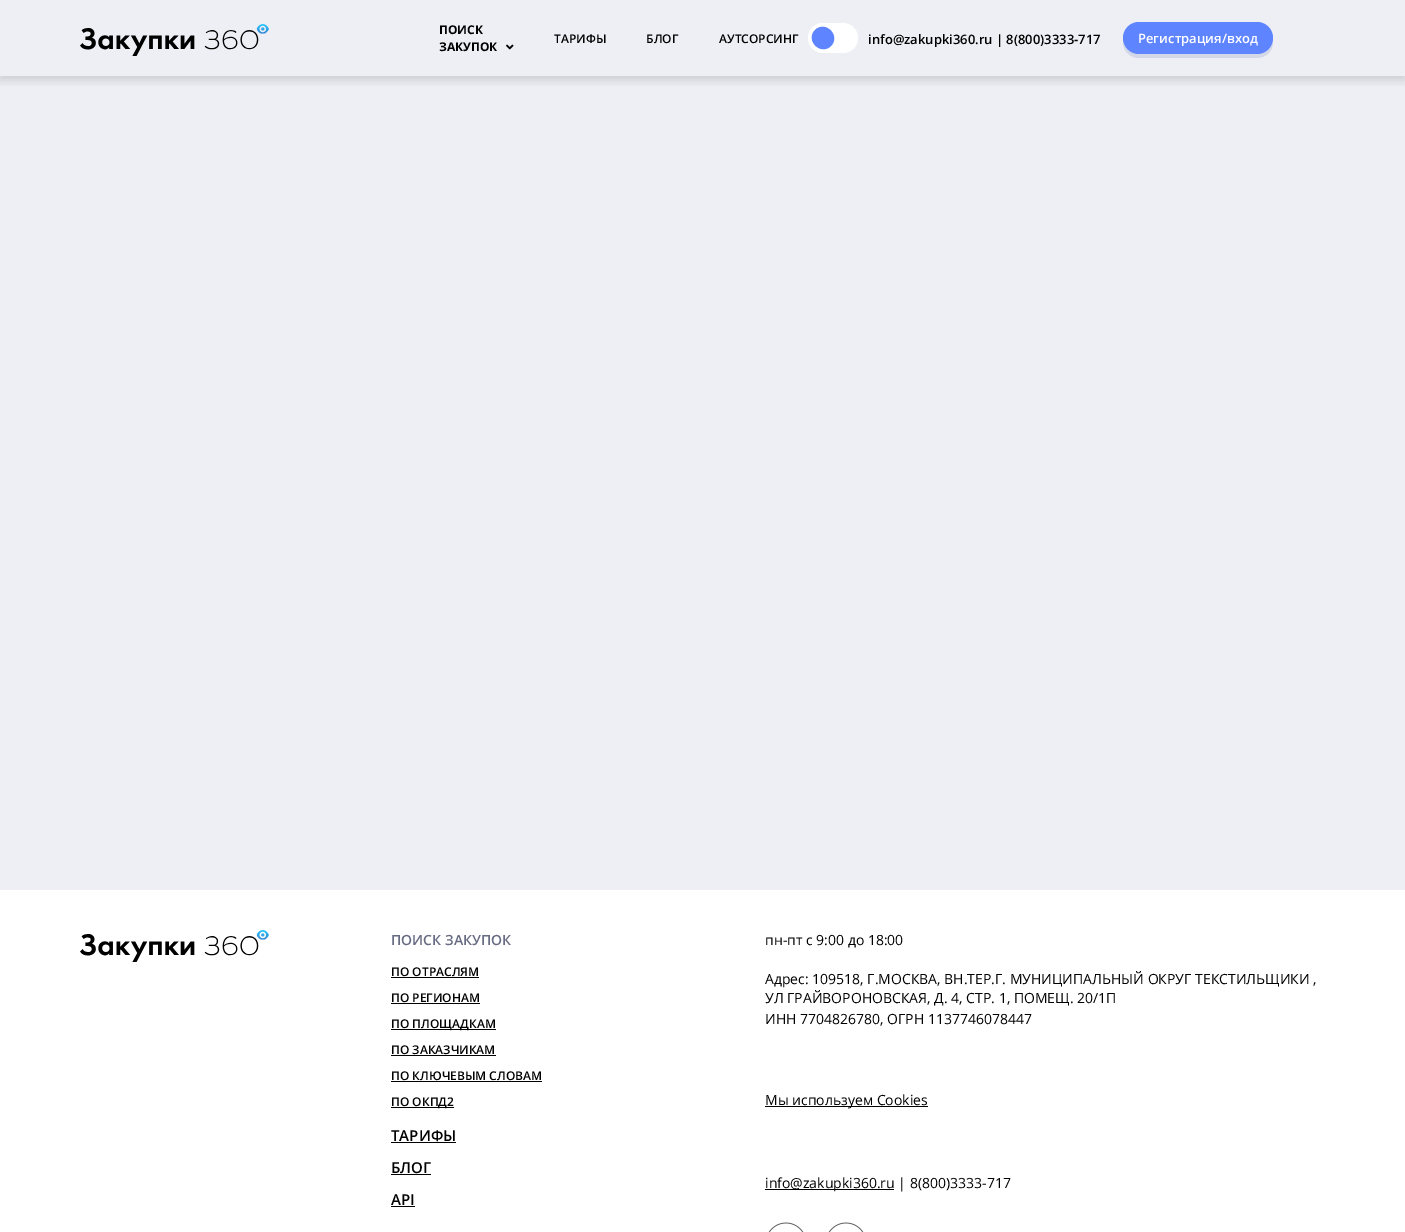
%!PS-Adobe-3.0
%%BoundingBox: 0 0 1405 1232
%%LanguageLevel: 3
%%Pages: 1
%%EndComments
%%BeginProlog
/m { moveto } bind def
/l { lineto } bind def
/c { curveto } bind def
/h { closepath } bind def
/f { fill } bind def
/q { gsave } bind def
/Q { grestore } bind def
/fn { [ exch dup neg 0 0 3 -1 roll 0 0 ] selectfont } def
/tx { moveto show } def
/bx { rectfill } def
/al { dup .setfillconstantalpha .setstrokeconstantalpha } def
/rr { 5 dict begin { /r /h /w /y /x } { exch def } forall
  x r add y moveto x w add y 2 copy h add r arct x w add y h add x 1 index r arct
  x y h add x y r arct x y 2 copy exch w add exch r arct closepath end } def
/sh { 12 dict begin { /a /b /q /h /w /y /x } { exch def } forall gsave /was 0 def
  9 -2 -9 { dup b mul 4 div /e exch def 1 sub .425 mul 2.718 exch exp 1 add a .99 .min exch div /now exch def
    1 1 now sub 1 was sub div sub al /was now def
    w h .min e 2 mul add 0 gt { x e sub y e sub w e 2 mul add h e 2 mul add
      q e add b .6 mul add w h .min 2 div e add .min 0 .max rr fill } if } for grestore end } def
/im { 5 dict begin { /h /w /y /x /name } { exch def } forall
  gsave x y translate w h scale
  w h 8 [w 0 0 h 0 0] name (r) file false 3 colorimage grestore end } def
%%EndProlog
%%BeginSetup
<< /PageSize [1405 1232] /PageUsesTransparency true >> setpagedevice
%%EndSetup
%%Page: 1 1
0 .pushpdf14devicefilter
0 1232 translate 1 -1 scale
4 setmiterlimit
0.929 0.937 0.961 setrgbcolor
0 0 1405 1232 bx
q
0 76 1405 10 rectclip
0 setgray
0 4 1405 76 0 5 0.15 sh
Q
(image0.raw) 80 24 189 32 im
/OpenSans-Bold 12 fn
0 setgray
(ПОИСК) 439 34 tx
(ЗАКУПОК) 439 51 tx
(image1.raw) 506 44 8 6 im
/OpenSans-SemiBold 12 fn
(ТАРИФЫ) 554 43 tx
(БЛОГ) 646 43 tx
(АУТСОРСИНГ) 719 43 tx
1 setgray
808 23 50 30 15 rr f
0.369 0.518 1 setrgbcolor
815 30 m 825.5 20 841 35.5 831 46 c 820.5 56 805 40.5 815 30 c h f
/OpenSans-SemiBold 13 fn
0 setgray
(info@zakupki360.ru | 8\(800\)3333-717) 868 44 tx
0.827 0.847 0.91 setrgbcolor
1123 40 m 1123 42 l 1123 51 1130 58 1139 58 c 1257 58 l 1266 58 1273 51 1273 42 c 1273 40 l 1272 48 1265 54 1257 54 c 1139 54 l 1131 54 1124 48 1123 40 c h f
0.369 0.518 1 setrgbcolor
1123 22 150 32 16 rr f
1 setgray
(Регистрация/вход) 1138 43 tx
0 890 1405 342 bx
(image2.raw) 80 930 189 32 im
/OpenSans-SemiBold 14 fn
0.404 0.424 0.51 setrgbcolor
(ПОИСК ЗАКУПОК) 391 945 tx
/OpenSans-SemiBold 12 fn
0 setgray
(ПО ОТРАСЛЯМ) 391 976 tx
391 977 88 1 bx
(ПО РЕГИОНАМ) 391 1002 tx
391 1003 89 1 bx
391 1029 105 1 bx
(ПО ПЛОЩАДКАМ) 391 1028 tx
(ПО ЗАКАЗЧИКАМ) 391 1054 tx
391 1055 105 1 bx
(ПО КЛЮЧЕВЫМ СЛОВАМ) 391 1080 tx
391 1081 151 1 bx
391 1107 63 1 bx
(ПО ОКПД2) 391 1106 tx
/OpenSans-SemiBold 15 fn
(ТАРИФЫ) 391 1141 tx
391 1142 65 1 bx
(БЛОГ) 391 1173 tx
391 1174 40 1 bx
(API) 391 1205 tx
391 1206 24 1 bx
/OpenSans-Regular 14 fn
(пн-пт с 9:00 до 18:00) 765 945 tx
(Адрес: 109518, Г.МОСКВА, ВН.ТЕР.Г. МУНИЦИПАЛЬНЫЙ ОКРУГ ТЕКСТИЛЬЩИКИ ,) 765 984 tx
(УЛ ГРАЙВОРОНОВСКАЯ, Д. 4, СТР. 1, ПОМЕЩ. 20/1П) 765 1003 tx
(ИНН 7704826780, ОГРН 1137746078447) 765 1024 tx
765 1106 163 1 bx
(Мы используем Cookies) 765 1105 tx
765 1189 129 1 bx
(info@zakupki360.ru) 765 1188 tx
(|) 898 1188 tx
(8\(800\)3333-717) 910 1188 tx
(image3.raw) 768 1222 36 10 im
(image3.raw) 828 1222 36 10 im
.poppdf14devicefilter showpage
%%EOF
